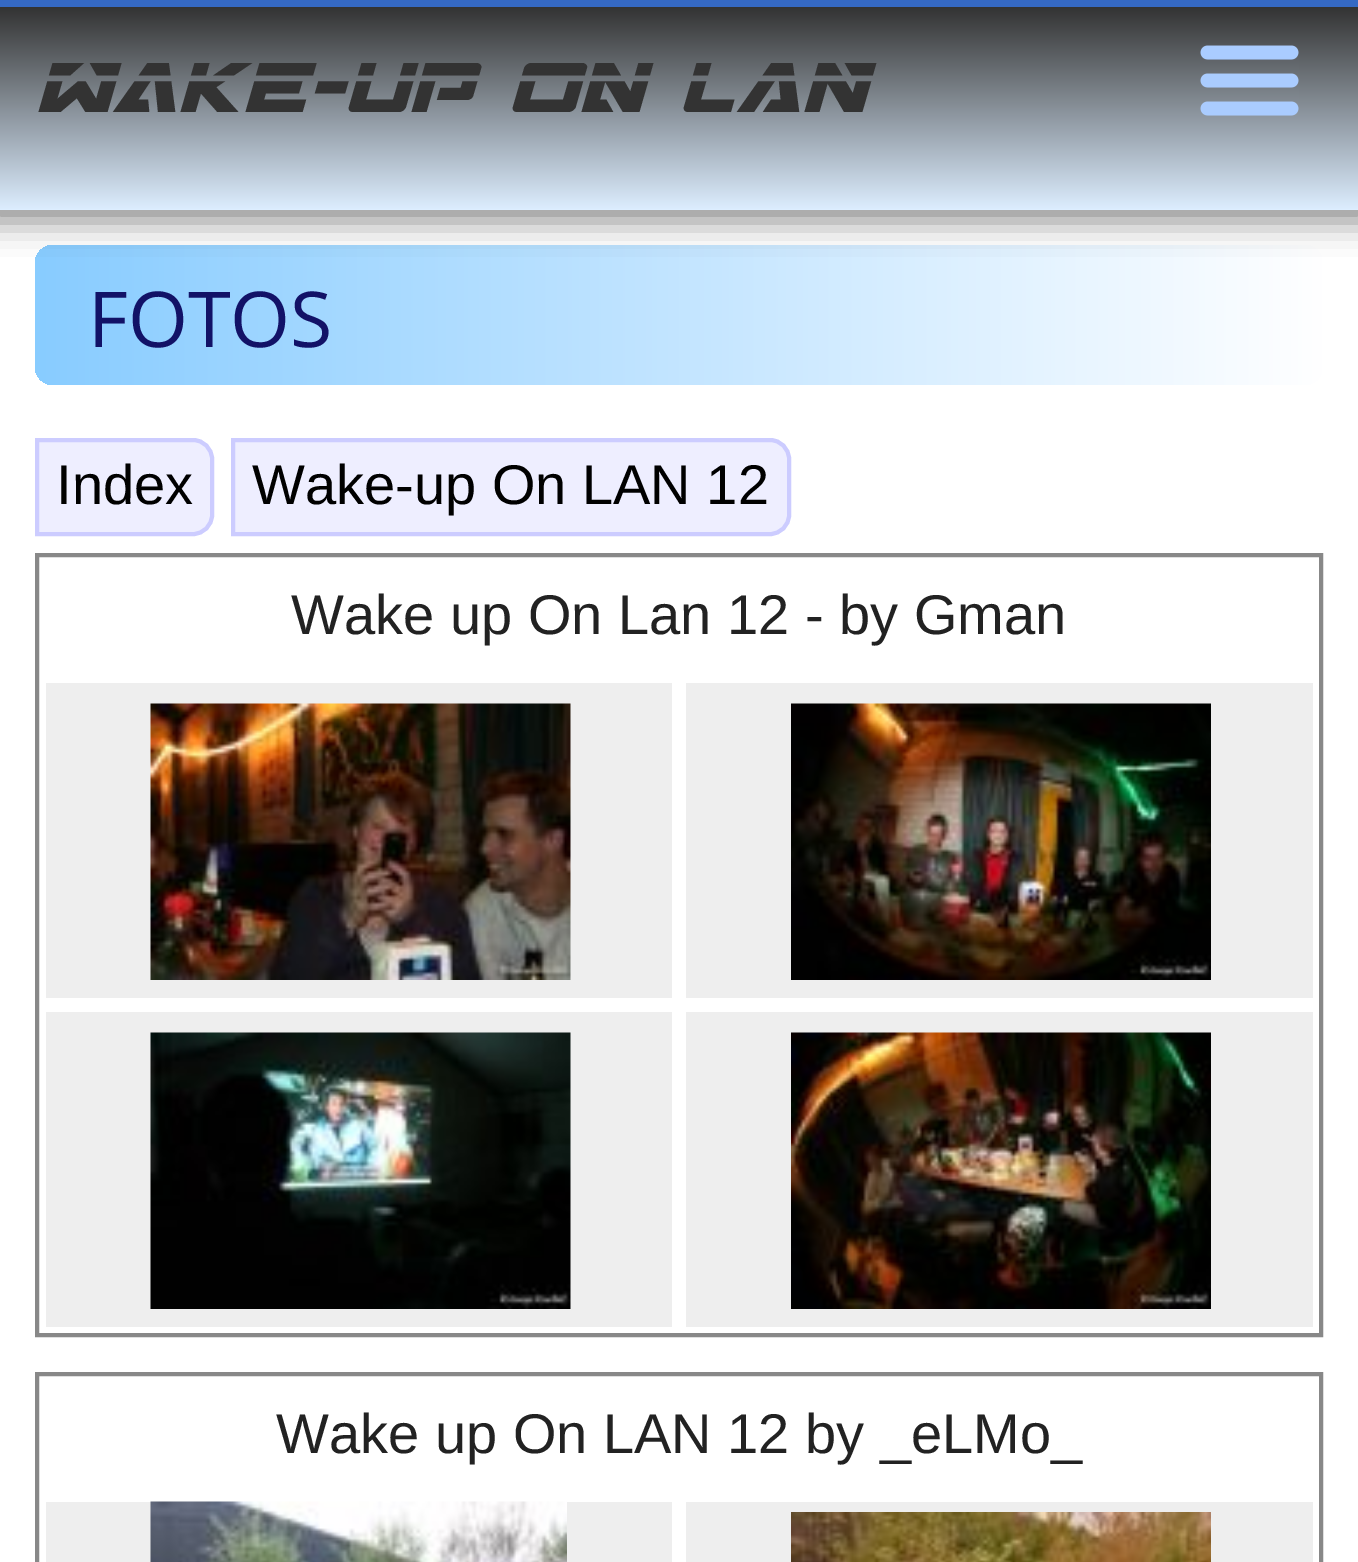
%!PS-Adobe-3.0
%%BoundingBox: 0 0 1358 1562
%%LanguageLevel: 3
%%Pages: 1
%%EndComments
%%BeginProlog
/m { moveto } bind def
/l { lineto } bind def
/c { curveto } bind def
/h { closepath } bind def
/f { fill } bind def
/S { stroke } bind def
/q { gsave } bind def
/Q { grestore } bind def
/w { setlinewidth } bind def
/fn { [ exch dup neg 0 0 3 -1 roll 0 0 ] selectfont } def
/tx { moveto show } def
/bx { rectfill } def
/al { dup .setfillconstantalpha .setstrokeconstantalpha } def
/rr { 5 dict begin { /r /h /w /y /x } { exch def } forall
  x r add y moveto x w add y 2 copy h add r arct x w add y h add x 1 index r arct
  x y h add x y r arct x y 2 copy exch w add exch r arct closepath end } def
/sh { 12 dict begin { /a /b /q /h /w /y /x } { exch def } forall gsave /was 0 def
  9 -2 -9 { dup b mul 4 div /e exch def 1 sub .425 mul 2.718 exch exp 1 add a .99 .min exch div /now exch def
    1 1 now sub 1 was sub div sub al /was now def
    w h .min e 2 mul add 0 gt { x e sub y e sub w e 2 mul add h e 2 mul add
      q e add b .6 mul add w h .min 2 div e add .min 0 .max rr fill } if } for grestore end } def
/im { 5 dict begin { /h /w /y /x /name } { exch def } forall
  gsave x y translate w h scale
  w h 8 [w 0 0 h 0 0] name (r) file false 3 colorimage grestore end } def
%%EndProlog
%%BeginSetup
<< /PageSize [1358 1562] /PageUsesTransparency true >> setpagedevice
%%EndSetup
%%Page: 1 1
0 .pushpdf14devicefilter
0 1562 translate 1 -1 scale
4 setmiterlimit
1 setgray
0 0 1358 1562 bx
0.267 0.533 1 setrgbcolor
0 0 1358 7 bx
q 35 245 1288 140 18 rr clip newpath
<< /ShadingType 2 /ColorSpace /DeviceRGB /Coords [35 315 1323 315] /Extend [true true] /Function << /FunctionType 2 /Domain [0 1] /C0 [0.533 0.8 1] /C1 [1 1 1] /N 1 >> >> shfill Q
0 setgray
-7 4 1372 217 0 16 0.45 sh
q 0 7 m 1358 7 l 1358 210 l 0 210 l h clip newpath
<< /ShadingType 2 /ColorSpace /DeviceRGB /Coords [679 7 679 210] /Extend [true true] /Function << /FunctionType 2 /Domain [0 1] /C0 [0.2 0.2 0.2] /C1 [0.867 0.933 1] /N 1 >> >> shfill Q
/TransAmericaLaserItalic-Regular 84 fn
0.2 setgray
(Wake-up On LAN) 35 112 tx
(image0.raw) 1200 45 99 71 im
/OpenSans-Regular 77 fn
0.071 0.071 0.404 setrgbcolor
(FOTOS) 88 347 tx
0.933 0.933 1 setrgbcolor
37 440 m 193 440 l 203.5 440 212 448.5 212 459 c 212 515 l 212 525.5 203.5 534 193 534 c 37 534 l h q f Q
0.8 0.8 1 setrgbcolor
4 w
S
/LiberationSans-Regular 56 fn
0 setgray
(Index) 56 504 tx
0.933 0.933 1 setrgbcolor
233 440 m 770 440 l 780.5 440 789 448.5 789 459 c 789 515 l 789 525.5 780.5 534 770 534 c 233 534 l h q f Q
0.8 0.8 1 setrgbcolor
S
0 setgray
(Wake-up On LAN 12) 252 504 tx
0.533 setgray
37 555 1284 780 rectstroke
0.133 setgray
(Wake up On Lan 12 - by Gman) 291 634 tx
0.933 setgray
46 683 626 315 bx
(image1.raw) 150 703 421 277 im
686 683 627 315 bx
(image2.raw) 791 703 420 277 im
46 1012 626 315 bx
(image3.raw) 150 1032 421 277 im
686 1012 627 315 bx
(image4.raw) 791 1032 420 277 im
0.533 setgray
37 1374 1284 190 rectstroke
0.133 setgray
(Wake up On LAN 12 by _eLMo_) 276 1453 tx
0.933 setgray
46 1502 626 60 bx
(image5.raw) 150 1501 417 61 im
686 1502 627 60 bx
(image6.raw) 791 1512 420 50 im
.poppdf14devicefilter showpage
%%EOF
